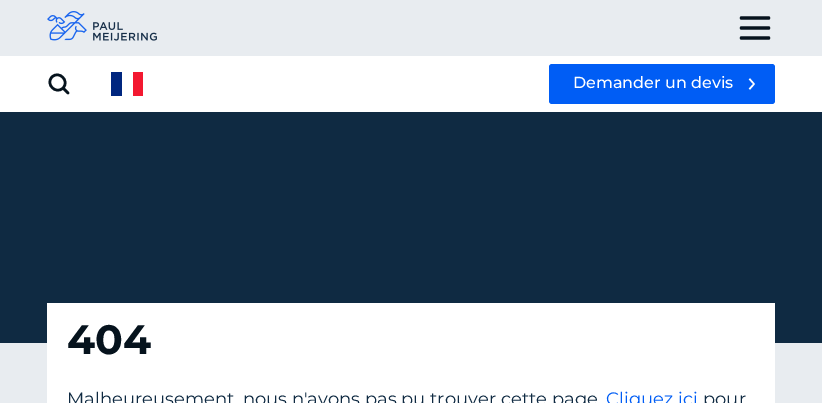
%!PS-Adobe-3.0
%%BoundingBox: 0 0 822 403
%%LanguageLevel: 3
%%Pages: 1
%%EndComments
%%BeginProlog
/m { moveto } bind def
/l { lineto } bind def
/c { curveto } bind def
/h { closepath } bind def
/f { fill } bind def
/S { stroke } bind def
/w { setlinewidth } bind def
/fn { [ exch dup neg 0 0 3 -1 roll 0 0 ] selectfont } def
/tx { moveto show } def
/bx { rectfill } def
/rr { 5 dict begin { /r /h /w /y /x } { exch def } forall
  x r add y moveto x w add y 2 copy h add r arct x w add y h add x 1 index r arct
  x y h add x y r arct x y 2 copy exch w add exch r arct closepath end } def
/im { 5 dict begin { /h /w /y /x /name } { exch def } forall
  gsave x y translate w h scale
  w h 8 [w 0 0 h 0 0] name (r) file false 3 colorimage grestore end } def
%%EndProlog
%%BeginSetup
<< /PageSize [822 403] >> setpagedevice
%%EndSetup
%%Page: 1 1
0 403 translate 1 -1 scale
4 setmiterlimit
0.91 0.925 0.941 setrgbcolor
0 0 822 403 bx
(image0.raw) 47 11 110 30 im
0.024 0.075 0.114 setrgbcolor
3.3 w
1 setlinecap
1 setlinejoin
741.5 18 m 768.5 18 l 741.5 28 m 768.5 28 l 741.5 38 m 768.5 38 l S
1 setgray
0 56 822 56 bx
0.024 0.075 0.114 setrgbcolor
2.5 w
68 93 m 63 88 l 63 88 m 70 81 59 70 52 77 c 45 84 56 95 63 88 c h S
0 0.149 0.498 setrgbcolor
111 72 11 24 bx
0.953 0.094 0.188 setrgbcolor
133 72 10 24 bx
0 0.365 0.961 setrgbcolor
549 64 226 40 3 rr f
/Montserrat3-Thin 16 fn
1 setgray
(Demander un devis) 573 88 tx
1.5 w
2 setlinecap
750 79.5 m 754 84 l 750 88.5 l S
0.059 0.165 0.259 setrgbcolor
0 112 822 231 bx
1 setgray
47 303 728 100 bx
/Montserrat-Thin 41 fn
0.024 0.075 0.114 setrgbcolor
(404) 67 354 tx
/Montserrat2-Thin 18 fn
0.059 0.165 0.259 setrgbcolor
(Malheureusement, nous n'avons pas pu trouver cette page) 67 405 tx
0 0.365 0.961 setrgbcolor
(Cliquez ici) 606 405 tx
0.059 0.165 0.259 setrgbcolor
(pour) 703 405 tx
showpage
%%EOF
